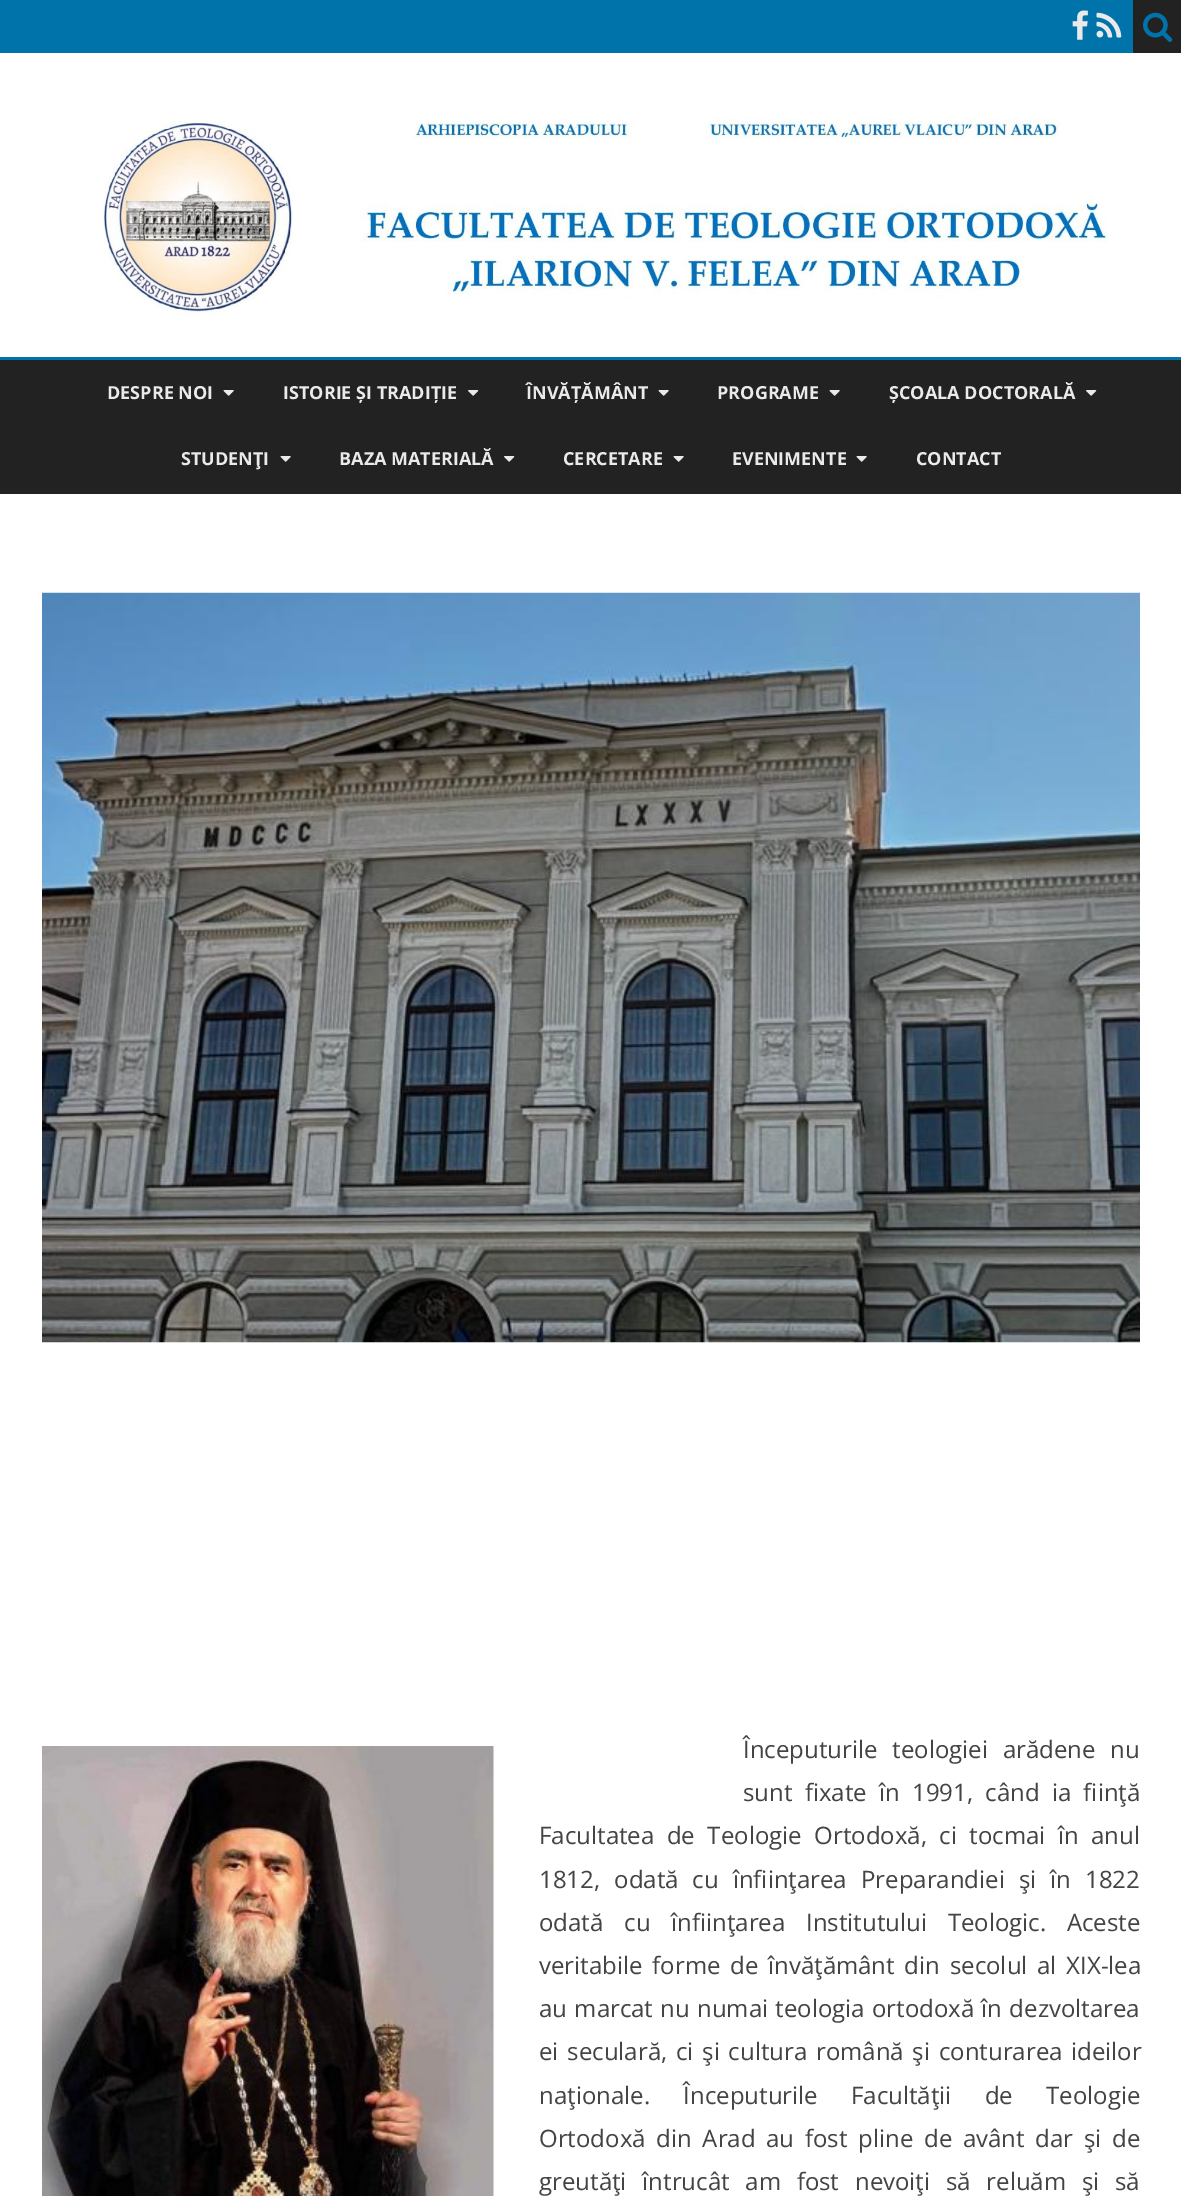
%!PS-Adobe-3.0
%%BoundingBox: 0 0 1181 2196
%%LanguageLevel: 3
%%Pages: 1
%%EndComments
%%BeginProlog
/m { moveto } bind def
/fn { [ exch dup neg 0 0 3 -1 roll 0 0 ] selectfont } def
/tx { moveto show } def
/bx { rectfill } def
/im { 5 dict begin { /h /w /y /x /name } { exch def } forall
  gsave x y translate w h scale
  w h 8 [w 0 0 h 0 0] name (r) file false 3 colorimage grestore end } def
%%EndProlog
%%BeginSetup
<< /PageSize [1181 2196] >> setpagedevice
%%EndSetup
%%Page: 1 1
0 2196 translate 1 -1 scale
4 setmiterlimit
1 setgray
0 0 1181 2196 bx
0 0.451 0.667 setrgbcolor
0 0 1133 53 bx
(image0.raw) 1072 10 16 30 im
(image1.raw) 1096 12 26 26 im
0.133 setgray
1133 0 48 53 bx
(image2.raw) 1143 12 30 30 im
(image3.raw) 103 118 1004 199 im
0 0.451 0.667 setrgbcolor
0 357 1181 3 bx
0.133 setgray
0 360 1181 134 bx
/OpenSans-Bold 18 fn
0.918 setgray
(DESPRE NOI) 107 399 tx
(image4.raw) 223 390 11 6 im
(ISTORIE ȘI TRADIȚIE) 283 399 tx
(image5.raw) 468 390 11 6 im
(ÎNVĂȚĂMÂNT) 526 399 tx
(image4.raw) 658 390 11 6 im
(PROGRAME) 717 399 tx
(image4.raw) 829 390 11 6 im
(ȘCOALA DOCTORALĂ) 889 399 tx
(image5.raw) 1086 390 11 6 im
(STUDENŢI) 181 465 tx
(image4.raw) 280 456 11 6 im
(BAZA MATERIALĂ) 339 465 tx
(image5.raw) 504 456 11 6 im
(CERCETARE) 563 465 tx
(image4.raw) 673 456 11 6 im
(EVENIMENTE) 732 465 tx
(image4.raw) 856 456 11 6 im
(CONTACT) 916 465 tx
(image6.raw) 42 592 1098 751 im
(image7.raw) 42 1746 452 450 im
/OpenSans-Regular 24 fn
0.267 setgray
743 1758 m 8.5 0 32 (Începuturile teologiei arădene nu) widthshow
743 1801 m 6 0 32 (sunt fixate în 1991, când ia fiinţă) widthshow
539 1844 m 6.25 0 32 (Facultatea de Teologie Ortodoxă, ci tocmai în anul) widthshow
539 1888 m 7.75 0 32 (1812, odată cu înfiinţarea Preparandiei şi în 1822) widthshow
539 1931 m 14.5 0 32 (odată cu înfiinţarea Institutului Teologic. Aceste) widthshow
539 1974 m 3.5 0 32 (veritabile forme de învăţământ din secolul al XIX-lea) widthshow
539 2017 m 1 0 32 (au marcat nu numai teologia ortodoxă în dezvoltarea) widthshow
539 2060 m 2.5 0 32 (ei seculară, ci şi cultura română şi conturarea ideilor) widthshow
539 2104 m 27 0 32 (naţionale. Începuturile Facultăţii de Teologie) widthshow
539 2147 m 4.5 0 32 (Ortodoxă din Arad au fost pline de avânt dar şi de) widthshow
539 2190 m 9.5 0 32 (greutăţi întrucât am fost nevoiţi să reluăm şi să) widthshow
showpage
%%EOF
